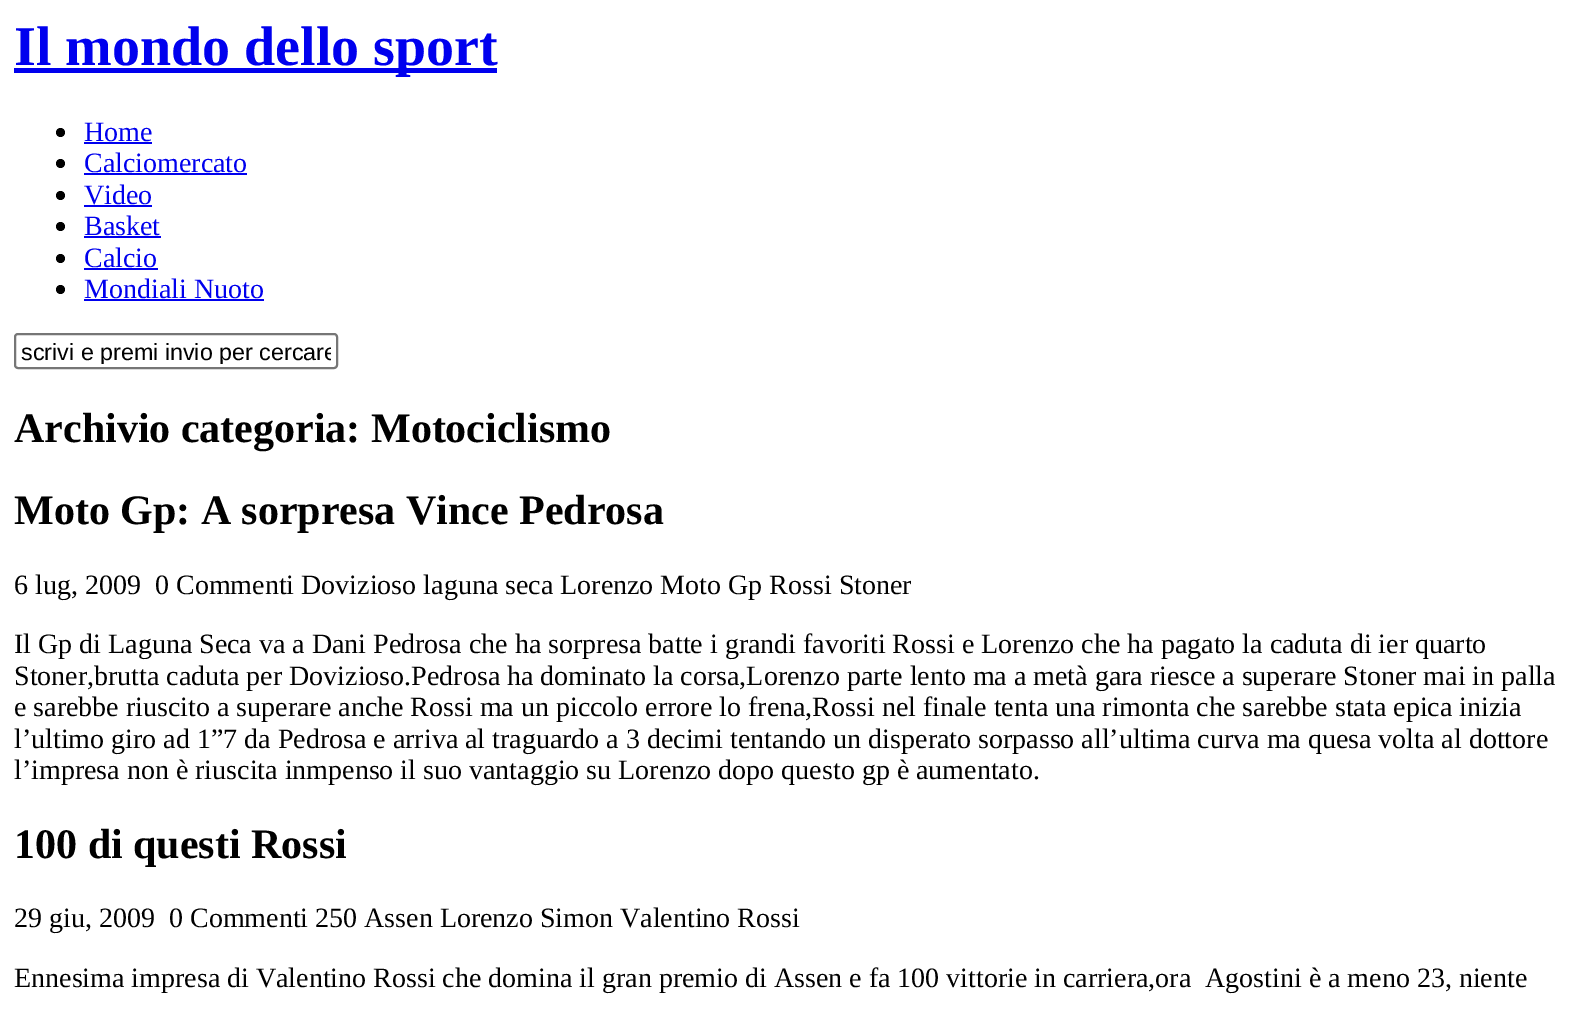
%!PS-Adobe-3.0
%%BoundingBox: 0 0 1572 1012
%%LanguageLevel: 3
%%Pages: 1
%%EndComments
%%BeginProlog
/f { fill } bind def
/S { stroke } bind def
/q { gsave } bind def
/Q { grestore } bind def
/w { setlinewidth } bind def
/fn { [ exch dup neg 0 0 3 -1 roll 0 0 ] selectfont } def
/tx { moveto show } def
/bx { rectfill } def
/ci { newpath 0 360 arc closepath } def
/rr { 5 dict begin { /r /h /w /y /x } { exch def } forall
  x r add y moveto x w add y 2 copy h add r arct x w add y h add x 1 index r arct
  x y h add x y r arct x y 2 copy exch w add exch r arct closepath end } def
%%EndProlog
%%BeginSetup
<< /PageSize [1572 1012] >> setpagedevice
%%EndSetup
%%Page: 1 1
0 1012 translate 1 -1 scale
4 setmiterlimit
1 setgray
0 0 1572 1012 bx
0 0 0.933 setrgbcolor
14 68 483 5 bx
/LiberationSerif-Bold 56 fn
(Il mondo dello sport) 14 65 tx
0 setgray
60.5 132.5 4.5 ci f
/LiberationSerif-Regular 28 fn
0 0 0.933 setrgbcolor
(Home) 84 141 tx
84 142 68 2 bx
0 setgray
60.5 163.5 4.5 ci f
0 0 0.933 setrgbcolor
(Calciomercato) 84 172 tx
84 173 163 2 bx
0 setgray
60.5 195.5 4.5 ci f
0 0 0.933 setrgbcolor
(Video) 84 204 tx
84 205 68 2 bx
0 setgray
60.5 226.5 4.5 ci f
0 0 0.933 setrgbcolor
(Basket) 84 235 tx
84 236 77 2 bx
0 setgray
60.5 258.5 4.5 ci f
0 0 0.933 setrgbcolor
(Calcio) 84 267 tx
84 268 74 2 bx
0 setgray
60.5 289.5 4.5 ci f
0 0 0.933 setrgbcolor
(Mondiali Nuoto) 84 298 tx
84 299 180 2 bx
0.463 setgray
2 w
15 334 322 34 3 rr S
q
21 338 310 26 rectclip
/LiberationSans-Regular 23.3 fn
0 setgray
(scrivi e premi invio per cercare) 21 360 tx
Q
/LiberationSerif-Bold 42 fn
0 setgray
(Archivio categoria: Motociclismo) 14 442 tx
(Moto Gp: A sorpresa Vince Pedrosa) 14 524 tx
/LiberationSerif-Regular 28 fn
(6 lug, 2009) 14 594 tx
(0 Commenti Dovizioso laguna seca Lorenzo Moto Gp Rossi Stoner) 155 594 tx
(Il Gp di Laguna Seca va a Dani Pedrosa che ha sorpresa batte i grandi favoriti Rossi e Lorenzo che ha pagato la caduta di ier quarto) 14 653 tx
(Stoner,brutta caduta per Dovizioso.Pedrosa ha dominato la corsa,Lorenzo parte lento ma a metà gara riesce a superare Stoner mai in palla) 14 685 tx
(e sarebbe riuscito a superare anche Rossi ma un piccolo errore lo frena,Rossi nel finale tenta una rimonta che sarebbe stata epica inizia) 14 716 tx
(l’ultimo giro ad 1”7 da Pedrosa e arriva al traguardo a 3 decimi tentando un disperato sorpasso all’ultima curva ma quesa volta al dottore) 14 748 tx
(l’impresa non è riuscita inmpenso il suo vantaggio su Lorenzo dopo questo gp è aumentato.) 14 779 tx
/LiberationSerif-Bold 42 fn
(100 di questi Rossi) 14 858 tx
/LiberationSerif-Regular 28 fn
(29 giu, 2009) 14 927 tx
(0 Commenti 250 Assen Lorenzo Simon Valentino Rossi) 169 927 tx
(Ennesima impresa di Valentino Rossi che domina il gran premio di Assen e fa 100 vittorie in carriera,ora  Agostini è a meno 23, niente) 14 987 tx
showpage
%%EOF
